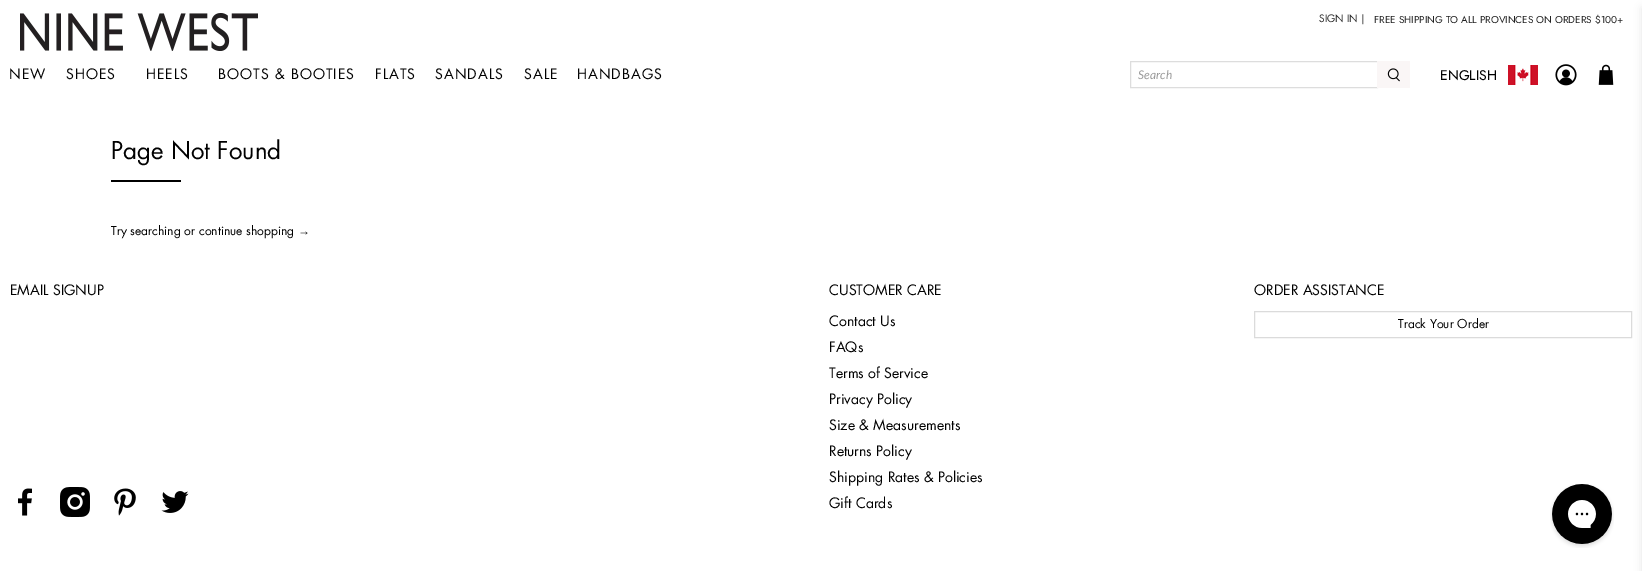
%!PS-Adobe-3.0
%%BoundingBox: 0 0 1642 571
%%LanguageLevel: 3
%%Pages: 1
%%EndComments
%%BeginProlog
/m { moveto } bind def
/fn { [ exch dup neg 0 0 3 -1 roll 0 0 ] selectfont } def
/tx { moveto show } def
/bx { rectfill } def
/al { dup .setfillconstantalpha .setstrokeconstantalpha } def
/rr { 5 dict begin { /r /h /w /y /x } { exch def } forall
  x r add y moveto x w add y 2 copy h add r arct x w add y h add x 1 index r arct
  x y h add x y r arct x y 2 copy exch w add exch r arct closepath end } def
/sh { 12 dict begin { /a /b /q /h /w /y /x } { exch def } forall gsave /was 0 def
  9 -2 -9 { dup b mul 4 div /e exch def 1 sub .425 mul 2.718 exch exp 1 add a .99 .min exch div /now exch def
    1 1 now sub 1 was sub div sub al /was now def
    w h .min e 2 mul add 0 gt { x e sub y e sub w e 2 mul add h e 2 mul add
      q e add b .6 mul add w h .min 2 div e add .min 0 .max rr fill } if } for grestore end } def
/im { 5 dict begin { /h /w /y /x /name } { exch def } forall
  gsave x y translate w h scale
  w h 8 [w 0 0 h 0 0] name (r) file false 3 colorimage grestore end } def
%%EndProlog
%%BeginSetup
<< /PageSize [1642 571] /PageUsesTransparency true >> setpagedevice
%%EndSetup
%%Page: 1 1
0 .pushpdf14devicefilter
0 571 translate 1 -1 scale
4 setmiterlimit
1 setgray
0 0 1642 571 bx
(image0.raw) 20 13 238 38 im
/Futura-Regular 10 fn
0.133 setgray
(SIGN IN |) 1319 22 tx
/Jost-Regular 10 fn
(FREE SHIPPING TO ALL PROVINCES ON ORDERS $100+) 1374 23 tx
0.859 setgray
1254.5 311.5 377 26 rectstroke
0.039 setgray
1642 8 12 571 0 4 0.1 sh
/Futura-Regular 14 fn
0 setgray
9 79 m 1 0 (NEW) ashow
66 79 m 1 0 (SHOES) ashow
146 79 m 1 0 (HEELS) ashow
218 79 m 1 0 (BOOTS & BOOTIES) ashow
375 79 m 1 0 (FLATS) ashow
435 79 m 1 0 (SANDALS) ashow
524 79 m 1 0 (SALE) ashow
577 79 m 1 0 (HANDBAGS) ashow
0.867 setgray
1130.5 61.5 247 26 rectstroke
/Lato-Italic 12 fn
0.608 setgray
(Search) 1138 79 tx
0.98 0.965 0.965 setrgbcolor
1377 61 33 27 bx
(image1.raw) 1387 68 13 14 im
/Jost-Regular 14 fn
0 setgray
(ENGLISH) 1440 80 tx
(image2.raw) 1508 65 30 20 im
(image3.raw) 1555 64 22 22 im
(image4.raw) 1598 64 16 21 im
/Futura-Regular 24 fn
(Page Not Found) 111 159 tx
111 180 70 2 bx
/Futura-Regular 12 fn
(Try searching or continue shopping) 111 235 tx
/LiberationSans-Regular 12 fn
(→) 298 235 tx
/Futura-Regular 14 fn
(EMAIL SIGNUP) 10 295 tx
(image5.raw) 18 488 14 28 im
(image6.raw) 60 487 30 30 im
(image7.raw) 114 488 22 28 im
(image8.raw) 161 491 28 22 im
(CUSTOMER CARE) 829 295 tx
(Contact Us) 829 326 tx
(FAQs) 829 352 tx
(Terms of Service) 829 378 tx
(Privacy Policy) 829 404 tx
(Size & Measurements) 829 430 tx
(Returns Policy) 829 456 tx
(Shipping Rates & Policies) 829 482 tx
(Gift Cards) 829 508 tx
(ORDER ASSISTANCE) 1254 295 tx
/Futura-Regular 12 fn
(Track Your Order) 1398 328 tx
(image9.raw) 1550 484 64 64 im
.poppdf14devicefilter showpage
%%EOF
